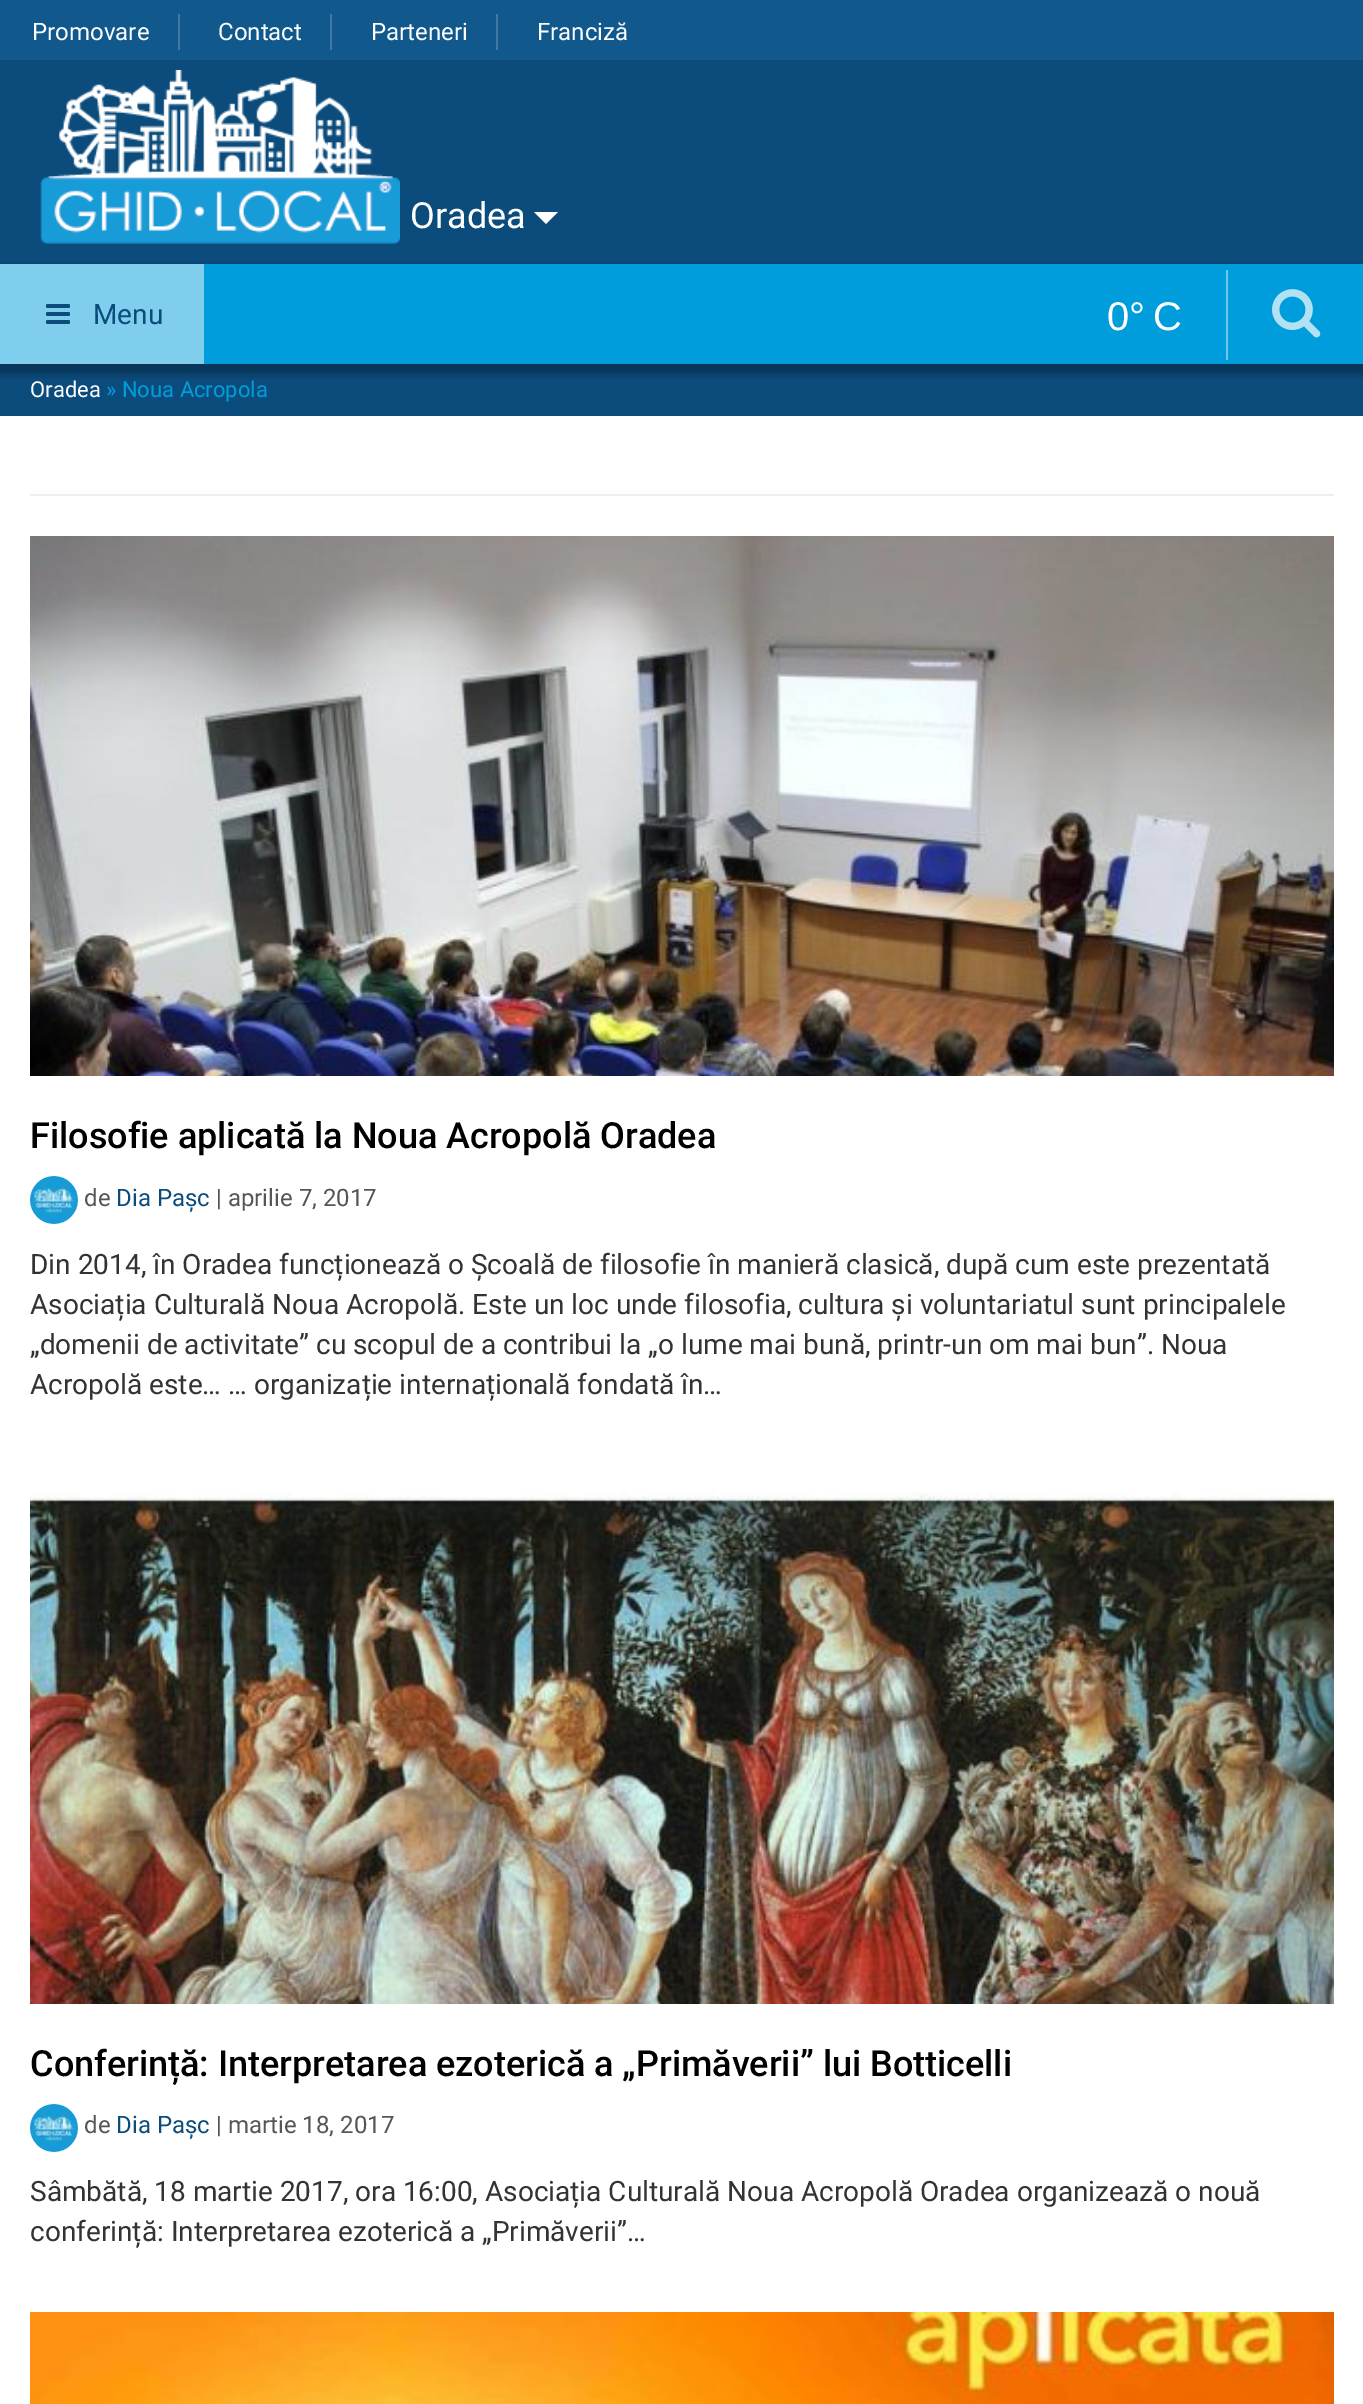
%!PS-Adobe-3.0
%%BoundingBox: 0 0 1363 2404
%%LanguageLevel: 3
%%Pages: 1
%%EndComments
%%BeginProlog
/m { moveto } bind def
/l { lineto } bind def
/h { closepath } bind def
/f { fill } bind def
/fn { [ exch dup neg 0 0 3 -1 roll 0 0 ] selectfont } def
/tx { moveto show } def
/bx { rectfill } def
/al { dup .setfillconstantalpha .setstrokeconstantalpha } def
/rr { 5 dict begin { /r /h /w /y /x } { exch def } forall
  x r add y moveto x w add y 2 copy h add r arct x w add y h add x 1 index r arct
  x y h add x y r arct x y 2 copy exch w add exch r arct closepath end } def
/sh { 12 dict begin { /a /b /q /h /w /y /x } { exch def } forall gsave /was 0 def
  9 -2 -9 { dup b mul 4 div /e exch def 1 sub .425 mul 2.718 exch exp 1 add a .99 .min exch div /now exch def
    1 1 now sub 1 was sub div sub al /was now def
    w h .min e 2 mul add 0 gt { x e sub y e sub w e 2 mul add h e 2 mul add
      q e add b .6 mul add w h .min 2 div e add .min 0 .max rr fill } if } for grestore end } def
/im { 5 dict begin { /h /w /y /x /name } { exch def } forall
  gsave x y translate w h scale
  w h 8 [w 0 0 h 0 0] name (r) file false 3 colorimage grestore end } def
%%EndProlog
%%BeginSetup
<< /PageSize [1363 2404] /PageUsesTransparency true >> setpagedevice
%%EndSetup
%%Page: 1 1
0 .pushpdf14devicefilter
0 2404 translate 1 -1 scale
4 setmiterlimit
1 setgray
0 0 1363 2404 bx
0.067 0.345 0.553 setrgbcolor
0 0 1363 60 bx
/Roboto-Regular 24 fn
1 setgray
(Promovare) 32 40 tx
0.255 0.475 0.643 setrgbcolor
178 14 2 36 bx
1 setgray
(Contact) 218 40 tx
0.255 0.475 0.643 setrgbcolor
330 14 2 36 bx
1 setgray
(Parteneri) 371 40 tx
0.255 0.475 0.643 setrgbcolor
496 14 2 36 bx
1 setgray
(Franciză) 537 40 tx
0.043 0.298 0.486 setrgbcolor
0 60 1363 204 bx
(image0.raw) 40 70 360 174 im
/Roboto-Regular 36 fn
1 setgray
(Oradea) 410 228 tx
534 212 m 558 212 l 546 224 l h f
0.043 0.298 0.486 setrgbcolor
0 364 1363 52 bx
0 setgray
-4 266 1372 108 0 4 0.3 sh
0 0.616 0.863 setrgbcolor
204 264 1159 100 bx
0.502 0.808 0.933 setrgbcolor
0 264 204 100 bx
(image1.raw) 46 304 24 20 im
/Roboto-Regular 28 fn
0.043 0.298 0.486 setrgbcolor
(Menu) 93 324 tx
0.439 0.784 0.922 setrgbcolor
1226 270 2 90 bx
/LiberationSans-Regular 40 fn
1 setgray
(0°) 1107 330 tx
(C) 1153 330 tx
(image2.raw) 1272 289 49 49 im
/Roboto-Regular 22 fn
(Oradea) 30 397 tx
0 0.616 0.863 setrgbcolor
(» Noua Acropola) 106 397 tx
0.933 setgray
30 494 1304 2 bx
(image3.raw) 30 536 1304 540 im
/Roboto-Medium 36 fn
0 setgray
(Filosofie aplicată la Noua Acropolă Oradea) 30 1148 tx
(image4.raw) 30 1176 48 48 im
/Roboto-Regular 24 fn
0.333 setgray
(de) 84 1206 tx
0.043 0.298 0.486 setrgbcolor
(Dia Pașc) 116 1206 tx
0.333 setgray
(| aprilie 7, 2017) 216 1206 tx
/Roboto-Regular 28 fn
0.2 setgray
(Din 2014, în Oradea funcționează o Școală de filosofie în manieră clasică, după cum este prezentată) 30 1274 tx
(Asociația Culturală Noua Acropolă. Este un loc unde filosofia, cultura și voluntariatul sunt principalele) 30 1314 tx
(„domenii de activitate” cu scopul de a contribui la „o lume mai bună, printr-un om mai bun”. Noua) 30 1354 tx
(Acropolă este… … organizație internațională fondată în…) 30 1394 tx
(image5.raw) 30 1492 1304 512 im
/Roboto-Medium 36 fn
0 setgray
(Conferință: Interpretarea ezoterică a „Primăverii” lui Botticelli) 30 2076 tx
(image4.raw) 30 2104 48 48 im
/Roboto-Regular 24 fn
0.333 setgray
(de) 84 2133 tx
0.043 0.298 0.486 setrgbcolor
(Dia Pașc) 116 2133 tx
0.333 setgray
(| martie 18, 2017) 216 2133 tx
/Roboto-Regular 28 fn
0.2 setgray
(Sâmbătă, 18 martie 2017, ora 16:00, Asociația Culturală Noua Acropolă Oradea organizează o nouă) 30 2201 tx
(conferință: Interpretarea ezoterică a „Primăverii”…) 30 2241 tx
(image6.raw) 30 2312 1304 92 im
.poppdf14devicefilter showpage
%%EOF
